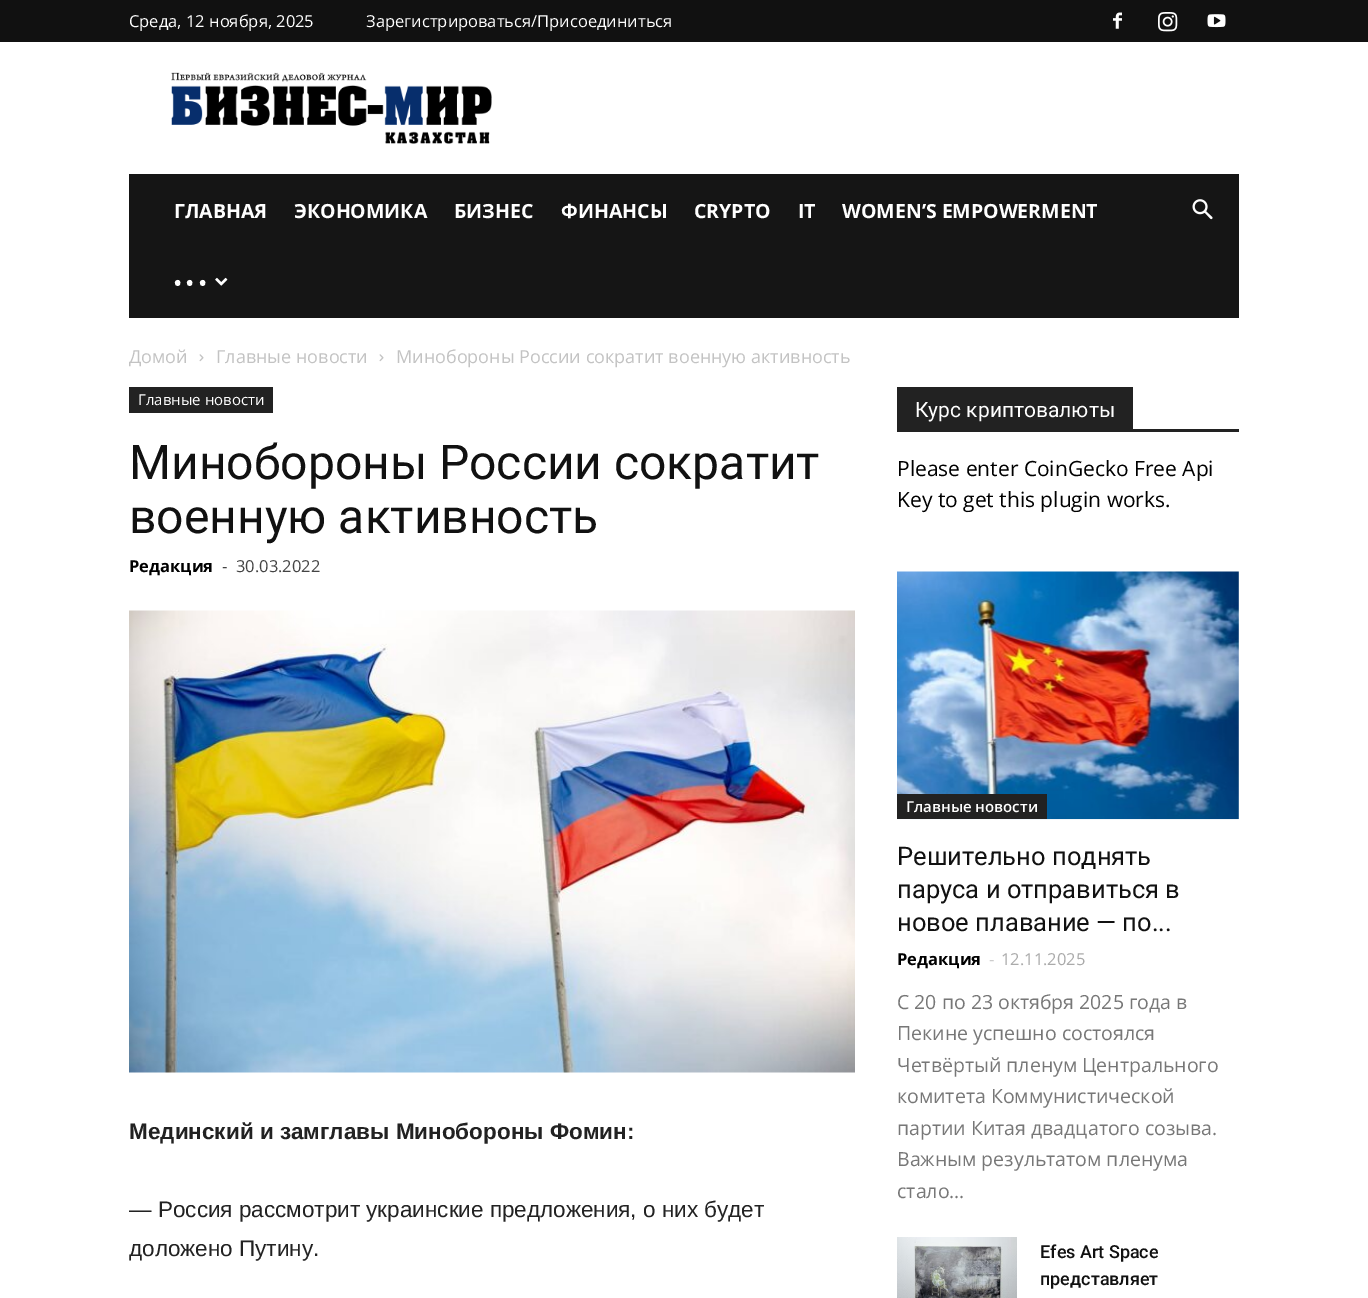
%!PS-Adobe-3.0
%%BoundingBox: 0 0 1368 1298
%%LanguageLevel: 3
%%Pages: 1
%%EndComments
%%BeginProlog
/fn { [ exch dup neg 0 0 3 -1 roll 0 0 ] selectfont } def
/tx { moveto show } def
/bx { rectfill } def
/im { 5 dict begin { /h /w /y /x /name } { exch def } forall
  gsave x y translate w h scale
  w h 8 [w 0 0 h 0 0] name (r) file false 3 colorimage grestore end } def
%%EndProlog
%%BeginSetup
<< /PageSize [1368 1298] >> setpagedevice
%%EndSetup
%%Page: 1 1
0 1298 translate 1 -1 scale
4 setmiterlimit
1 setgray
0 0 1368 1298 bx
0.067 setgray
0 0 1368 42 bx
/OpenSans-Regular 16.5 fn
1 setgray
(Среда, 12 ноября, 2025) 129 27 tx
(Зарегистрироваться/Присоединиться) 366 27 tx
(image0.raw) 1113 12 9 17 im
(image1.raw) 1158 12 20 20 im
(image2.raw) 1207 14 19 14 im
(image3.raw) 171 72 321 72 im
0.082 setgray
129 174 1110 144 bx
/OpenSans-Bold 19.5 fn
1 setgray
(ГЛАВНАЯ) 174 218 tx
(ЭКОНОМИКА) 294 218 tx
(БИЗНЕС) 454 218 tx
(ФИНАНСЫ) 561 218 tx
(CRYPTO) 694 218 tx
(IT) 798 218 tx
(WOMEN’S EMPOWERMENT) 842 218 tx
(• • •) 174 290 tx
(image4.raw) 215 277 13 9 im
(image5.raw) 1192 199 21 21 im
/OpenSans-Regular 18 fn
0.765 setgray
(Домой) 129 363 tx
(image6.raw) 199 354 5 8 im
(Главные новости) 216 363 tx
(image6.raw) 379 354 5 8 im
(Минобороны России сократит военную активность) 396 363 tx
0.133 setgray
129 387 144 26 bx
/OpenSans-Regular 15 fn
1 setgray
(Главные новости) 138 405 tx
/Roboto-Regular 48 fn
0.067 setgray
(Минобороны России сократит) 129 479 tx
(военную активность) 129 533 tx
/OpenSans-Bold 16.5 fn
0 setgray
(Редакция) 129 572 tx
/OpenSans-Regular 16.5 fn
0.267 setgray
(-) 222 572 tx
(30.03.2022) 236 572 tx
(image7.raw) 129 610 726 463 im
/LiberationSans-Bold 22.5 fn
0.133 setgray
(Мединский и замглавы Минобороны Фомин:) 129 1139 tx
/LiberationSans-Regular 22.5 fn
(— Россия рассмотрит украинские предложения, о них будет) 129 1217 tx
(доложено Путину.) 129 1256 tx
897 429 342 3 bx
897 387 236 42 bx
/Roboto-Regular 21 fn
1 setgray
(Курс криптовалюты) 915 417 tx
/OpenSans-Regular 21 fn
0 setgray
(Please enter CoinGecko Free Api) 897 476 tx
(Key to get this plugin works.) 897 507 tx
(image8.raw) 897 571 342 249 im
0.133 setgray
897 794 150 25 bx
/OpenSans-SemiBold 15 fn
1 setgray
(Главные новости) 906 812 tx
/Roboto-Regular 25.5 fn
0.067 setgray
(Решительно поднять) 897 865 tx
(паруса и отправиться в) 897 898 tx
(новое плавание — по...) 897 931 tx
/OpenSans-Bold 16.5 fn
0 setgray
(Редакция) 897 965 tx
/OpenSans-Regular 16.5 fn
0.8 setgray
(-) 989 965 tx
0.667 setgray
(12.11.2025) 1001 965 tx
/OpenSans-Regular 19.5 fn
0.467 setgray
(С 20 по 23 октября 2025 года в) 897 1009 tx
(Пекине успешно состоялся) 897 1040 tx
(Четвёртый пленум Центрального) 897 1072 tx
(комитета Коммунистической) 897 1103 tx
(партии Китая двадцатого созыва.) 897 1135 tx
(Важным результатом пленума) 897 1166 tx
(стало...) 897 1198 tx
(image9.raw) 897 1237 120 61 im
/Roboto-Medium 18 fn
0.067 setgray
(Efes Art Space) 1040 1258 tx
(представляет) 1040 1285 tx
showpage
%%EOF
